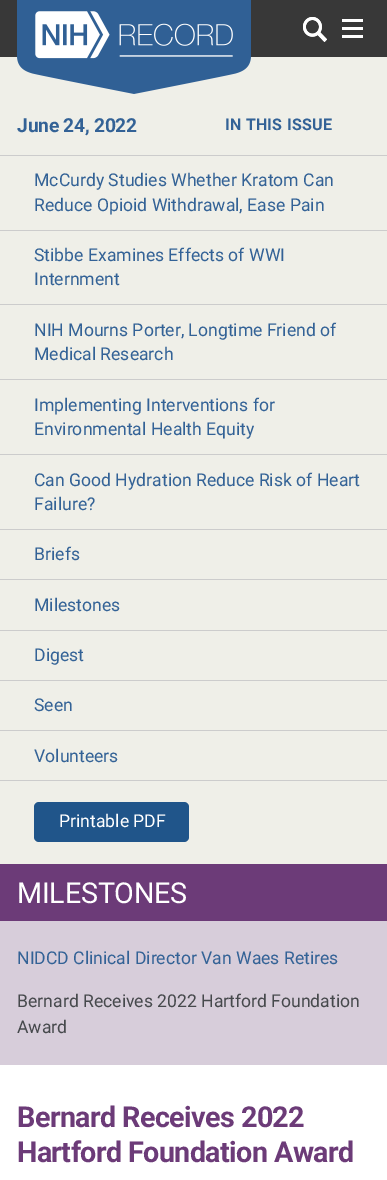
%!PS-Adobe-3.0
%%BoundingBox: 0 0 387 1180
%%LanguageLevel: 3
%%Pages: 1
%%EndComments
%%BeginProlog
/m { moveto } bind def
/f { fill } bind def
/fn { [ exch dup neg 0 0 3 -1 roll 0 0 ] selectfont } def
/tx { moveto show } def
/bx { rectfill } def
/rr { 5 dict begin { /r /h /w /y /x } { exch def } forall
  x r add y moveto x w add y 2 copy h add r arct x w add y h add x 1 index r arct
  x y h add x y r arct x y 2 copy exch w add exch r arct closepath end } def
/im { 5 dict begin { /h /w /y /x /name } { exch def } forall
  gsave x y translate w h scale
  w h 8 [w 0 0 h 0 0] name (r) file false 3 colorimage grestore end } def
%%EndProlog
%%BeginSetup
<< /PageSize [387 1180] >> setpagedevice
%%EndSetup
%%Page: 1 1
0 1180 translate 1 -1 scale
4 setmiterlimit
0.22 setgray
0 0 387 1180 bx
0.937 0.937 0.91 setrgbcolor
0 57 387 807 bx
(image0.raw) 17 0 234 94 im
(image1.raw) 303 17 24 25 im
(image2.raw) 303 17 24 25 im
(image3.raw) 342 19 21 19 im
/Roboto-Bold 19.25 fn
0.2 0.384 0.588 setrgbcolor
17 132 m -0.25 0 (June 24, 2022) ashow
0.8 setgray
0 155 387 1 bx
/Roboto-Regular 17.6 fn
0.2 0.384 0.588 setrgbcolor
(McCurdy Studies Whether Kratom Can) 34 186 tx
(Reduce Opioid Withdrawal, Ease Pain) 34 211 tx
0.8 setgray
0 230 387 1 bx
0.2 0.384 0.588 setrgbcolor
(Stibbe Examines Effects of WWI) 34 261 tx
(Internment) 34 285 tx
0.8 setgray
0 304 387 1 bx
0.2 0.384 0.588 setrgbcolor
(NIH Mourns Porter, Longtime Friend of) 34 336 tx
(Medical Research) 34 360 tx
0.8 setgray
0 379 387 1 bx
0.2 0.384 0.588 setrgbcolor
(Implementing Interventions for) 34 411 tx
(Environmental Health Equity) 34 435 tx
0.8 setgray
0 454 387 1 bx
0.2 0.384 0.588 setrgbcolor
(Can Good Hydration Reduce Risk of Heart) 34 486 tx
(Failure?) 34 510 tx
0.8 setgray
0 529 387 1 bx
0.2 0.384 0.588 setrgbcolor
(Briefs) 34 560 tx
0.8 setgray
0 579 387 1 bx
0.2 0.384 0.588 setrgbcolor
(Milestones) 34 611 tx
0.8 setgray
0 630 387 1 bx
0.2 0.384 0.588 setrgbcolor
(Digest) 34 661 tx
0.8 setgray
0 680 387 1 bx
0.2 0.384 0.588 setrgbcolor
(Seen) 34 711 tx
0.8 setgray
0 730 387 1 bx
0.2 0.384 0.588 setrgbcolor
(Volunteers) 34 762 tx
0.8 setgray
0 780 387 1 bx
0.125 0.333 0.541 setrgbcolor
34 802 155 40 5 rr f
1 setgray
(Printable PDF) 59 827 tx
/Roboto-Bold 16 fn
0.2 0.384 0.588 setrgbcolor
225 130 m 0.25 0 (IN THIS ISSUE) ashow
1 setgray
0 1065 387 115 bx
0.843 0.804 0.855 setrgbcolor
0 921 387 144 bx
0.424 0.231 0.471 setrgbcolor
0 864 387 57 bx
/Roboto-Regular 28.75 fn
1 setgray
17 903 m -0.25 0 (MILESTONES) ashow
/Roboto-Regular 17.6 fn
0.2 0.384 0.588 setrgbcolor
(NIDCD Clinical Director Van Waes Retires) 17 964 tx
0.275 0.286 0.298 setrgbcolor
(Bernard Receives 2022 Hartford Foundation) 17 1007 tx
(Award) 17 1033 tx
/Roboto-Bold 28.75 fn
0.424 0.231 0.471 setrgbcolor
17 1127 m -0.6 0 (Bernard Receives 2022) ashow
17 1162 m -0.6 0 (Hartford Foundation Award) ashow
showpage
%%EOF
